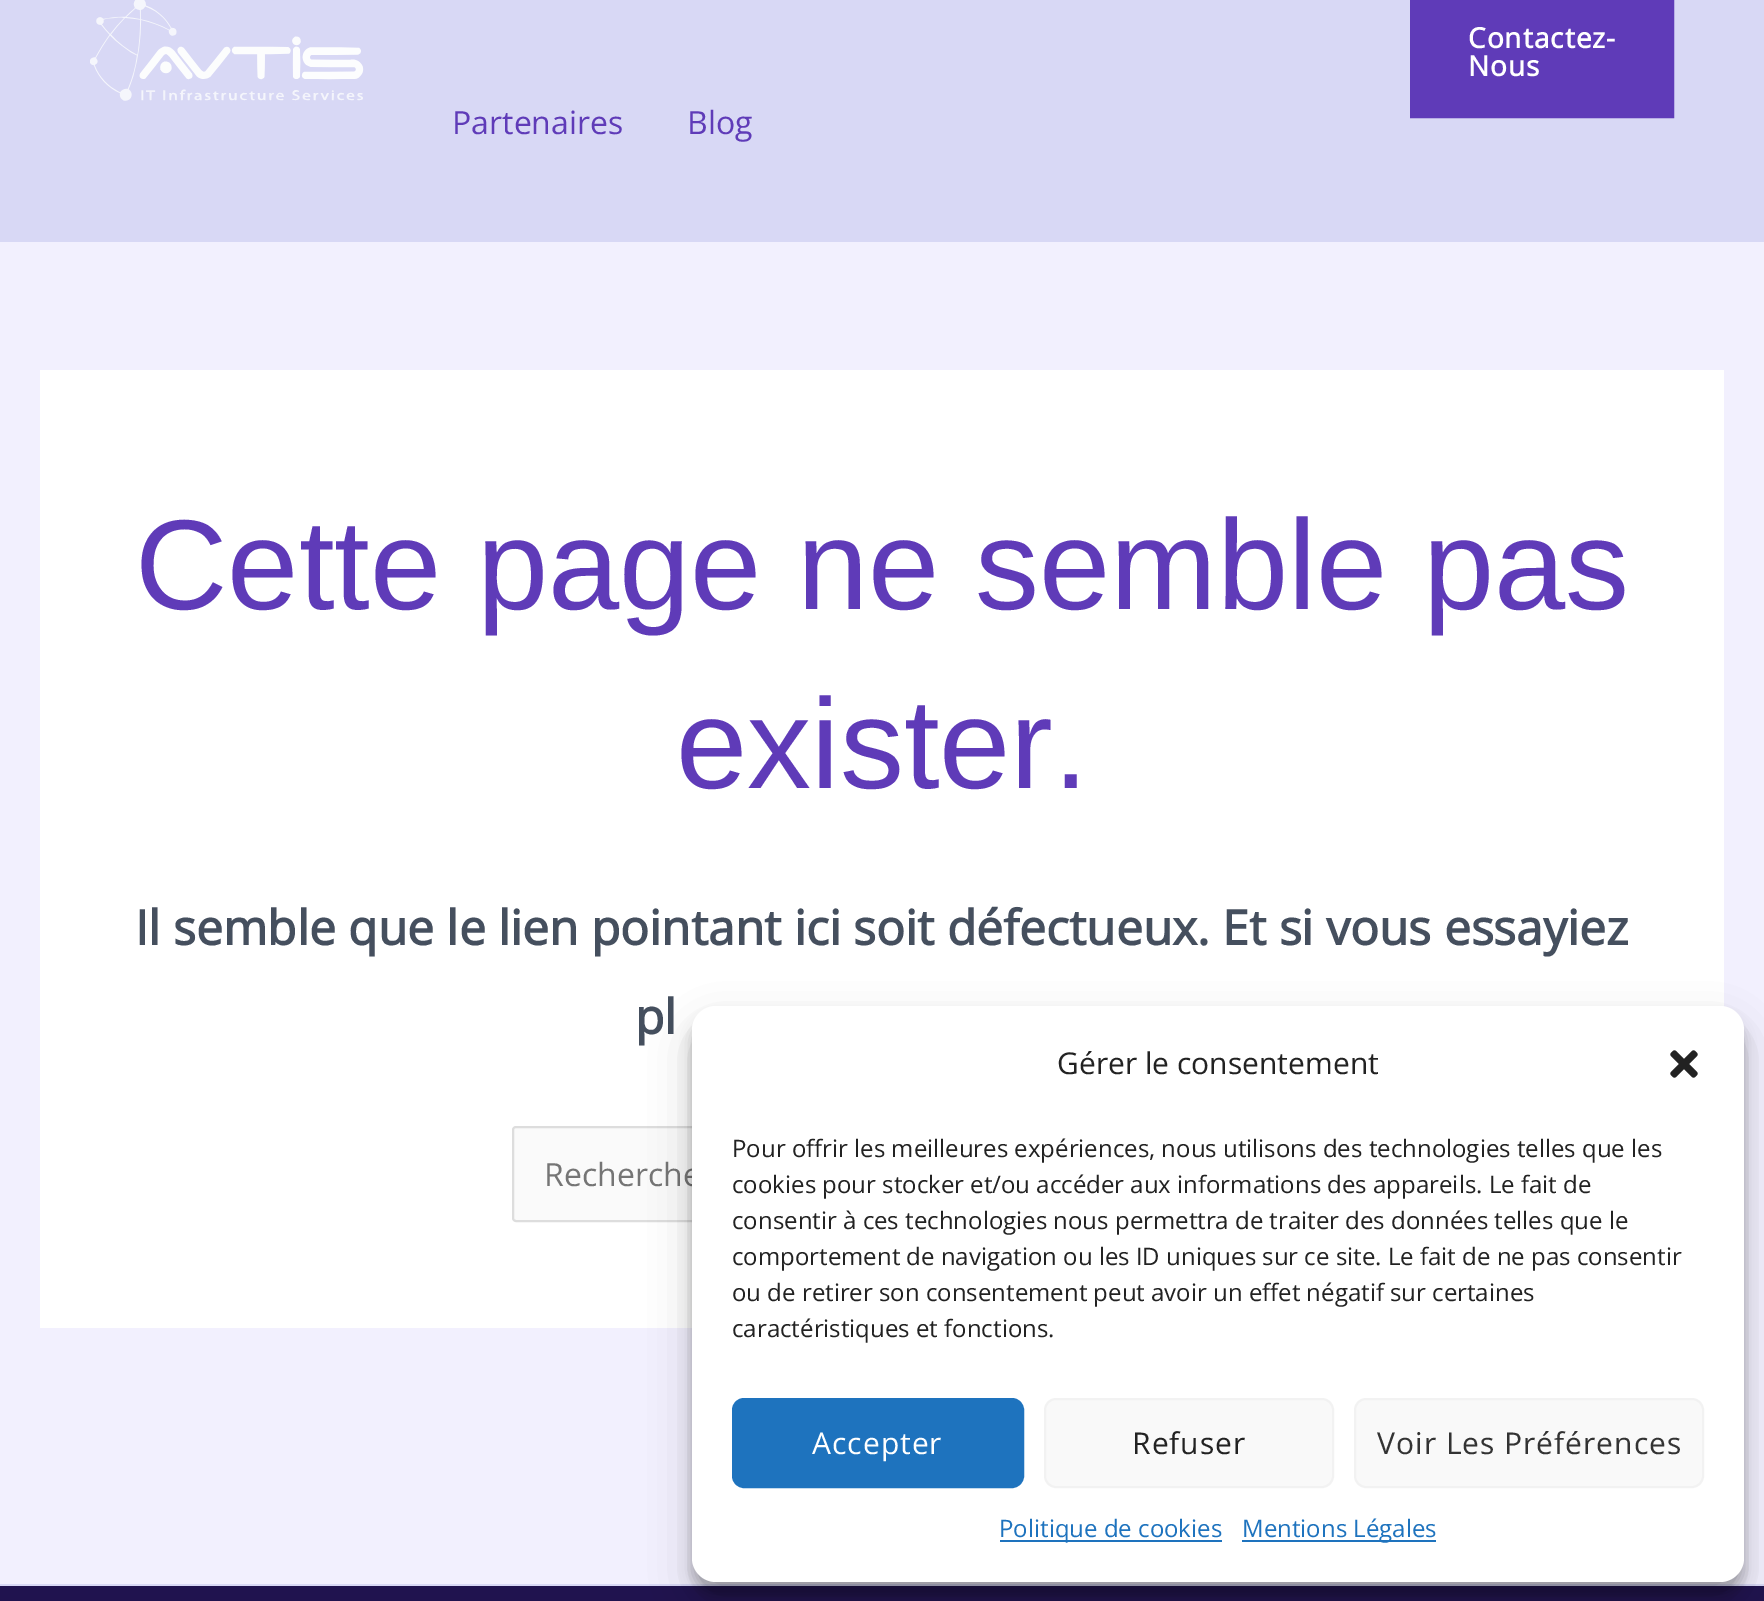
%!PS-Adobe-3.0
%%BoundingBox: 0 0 1764 1601
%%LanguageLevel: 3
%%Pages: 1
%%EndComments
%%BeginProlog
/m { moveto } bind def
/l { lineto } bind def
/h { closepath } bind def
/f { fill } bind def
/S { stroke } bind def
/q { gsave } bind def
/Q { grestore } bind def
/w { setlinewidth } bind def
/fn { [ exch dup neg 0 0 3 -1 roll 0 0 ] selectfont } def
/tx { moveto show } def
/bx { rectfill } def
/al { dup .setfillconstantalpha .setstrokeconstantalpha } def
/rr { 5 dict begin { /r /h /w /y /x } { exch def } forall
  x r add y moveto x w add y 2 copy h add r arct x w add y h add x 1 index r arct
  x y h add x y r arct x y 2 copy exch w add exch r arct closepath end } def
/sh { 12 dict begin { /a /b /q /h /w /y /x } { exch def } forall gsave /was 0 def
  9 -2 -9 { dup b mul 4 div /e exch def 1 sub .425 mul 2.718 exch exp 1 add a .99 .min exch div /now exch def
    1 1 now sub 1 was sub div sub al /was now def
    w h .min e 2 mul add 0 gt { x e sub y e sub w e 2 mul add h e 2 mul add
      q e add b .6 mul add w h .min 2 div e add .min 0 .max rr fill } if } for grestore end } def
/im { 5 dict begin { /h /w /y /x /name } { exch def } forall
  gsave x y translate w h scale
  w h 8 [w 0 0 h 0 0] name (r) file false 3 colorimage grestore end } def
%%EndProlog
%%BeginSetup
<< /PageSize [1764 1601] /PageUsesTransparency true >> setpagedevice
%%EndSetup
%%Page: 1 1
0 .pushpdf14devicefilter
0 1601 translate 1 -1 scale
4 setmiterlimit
0.949 0.941 0.996 setrgbcolor
0 0 1764 1601 bx
0.847 0.847 0.961 setrgbcolor
0 0 1764 242 bx
(image0.raw) 90 0 274 101 im
0.373 0.231 0.722 setrgbcolor
1428 4 228 96 bx
18 w
1419 -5 m 1665 -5 l 1665 109 l 1419 109 l h S
/OpenSans-Bold 28 fn
1 setgray
1468 48 m 1 0 (Contactez-) ashow
1468 76 m 1 0 (Nous) ashow
/OpenSans-Regular 32 fn
0.373 0.231 0.722 setrgbcolor
(Partenaires) 452 134 tx
(Blog) 687 134 tx
1 setgray
40 370 1684 958 bx
/LiberationSans-Regular 128 fn
0.373 0.231 0.722 setrgbcolor
(Cette page ne semble pas) 135 609 tx
(exister.) 676 788 tx
/OpenSans-Bold 48 fn
0.271 0.31 0.369 setrgbcolor
(Il semble que le lien pointant ici soit défectueux. Et si vous essayiez) 135 945 tx
(pl) 635 1034 tx
0.98 setgray
513 1127 738 94 3 rr q f Q
0.867 setgray
2 w
S
/OpenSans-Regular 32 fn
0.459 setgray
(Recherche) 544 1186 tx
q 0 1586 m 1764 1586 l 1764 1601 l 0 1601 l h clip newpath
<< /ShadingType 2 /ColorSpace /DeviceRGB /Coords [882 1584 882 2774] /Extend [true true] /Function << /FunctionType 3 /Domain [0 1] /Functions [<< /FunctionType 2 /Domain [0 1] /C0 [0.125 0.075 0.31] /C1 [0.125 0.075 0.31] /N 1 >> << /FunctionType 2 /Domain [0 1] /C0 [0.125 0.075 0.31] /C1 [0.608 0.318 0.878] /N 1 >>] /Bounds [0.44] /Encode [0 1 0 1] >> >> shfill Q
0.847 0.847 0.961 setrgbcolor
0 1584 1764 2 bx
0 setgray
692 1018 1052 576 24 6 0.23 sh
692 1026 1052 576 24 20 0.19 sh
1 setgray
692 1006 1052 576 24 rr f
/OpenSans-Regular 30 fn
0.133 setgray
(Gérer le consentement) 1057 1074 tx
(image1.raw) 1670 1050 28 28 im
/OpenSans-Regular 24 fn
(Pour offrir les meilleures expériences, nous utilisons des technologies telles que les) 732 1157 tx
(cookies pour stocker et/ou accéder aux informations des appareils. Le fait de) 732 1193 tx
(consentir à ces technologies nous permettra de traiter des données telles que le) 732 1229 tx
(comportement de navigation ou les ID uniques sur ce site. Le fait de ne pas consentir) 732 1265 tx
(ou de retirer son consentement peut avoir un effet négatif sur certaines) 732 1301 tx
(caractéristiques et fonctions.) 732 1337 tx
0.118 0.451 0.745 setrgbcolor
733 1399 290 88 11 rr q f Q
S
/OpenSans-Regular 30 fn
1 setgray
812 1454 m 1 0 (Accepter) ashow
0.976 setgray
1045 1399 288 88 11 rr q f Q
0.949 setgray
S
0.133 setgray
1132 1454 m 1 0 (Refuser) ashow
0.976 setgray
1355 1399 348 88 11 rr q f Q
0.949 setgray
S
0.2 setgray
1377 1454 m 1 0 (Voir Les Préférences) ashow
0.118 0.451 0.745 setrgbcolor
1000 1540 222 2 bx
/OpenSans-Regular 24 fn
(Politique de cookies) 999 1537 tx
1242 1540 194 2 bx
(Mentions Légales) 1242 1537 tx
.poppdf14devicefilter showpage
%%EOF
